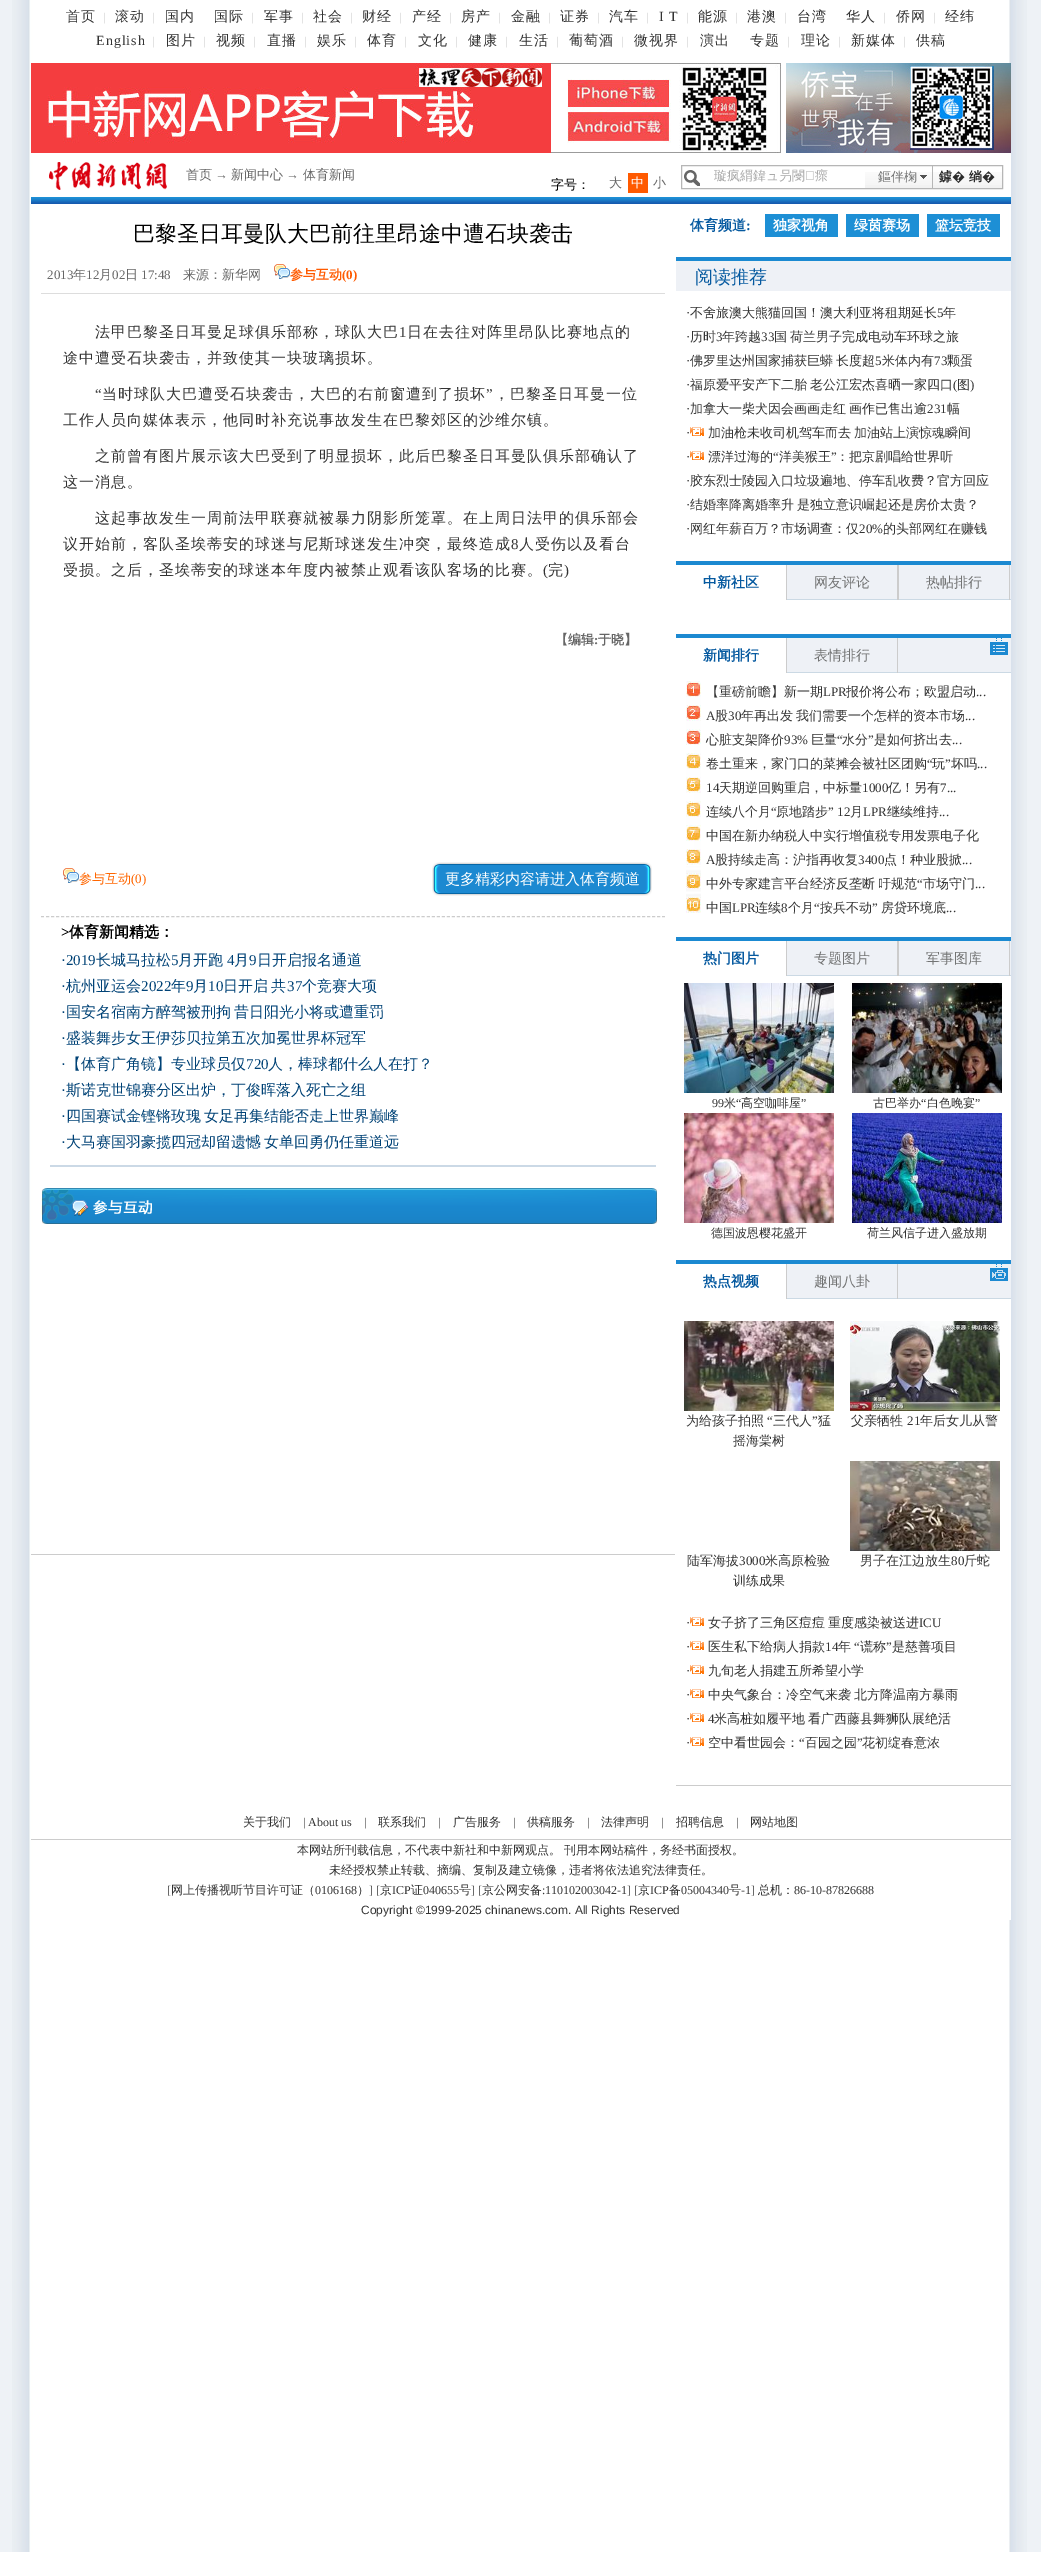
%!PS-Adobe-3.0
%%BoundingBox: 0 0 1041 2552
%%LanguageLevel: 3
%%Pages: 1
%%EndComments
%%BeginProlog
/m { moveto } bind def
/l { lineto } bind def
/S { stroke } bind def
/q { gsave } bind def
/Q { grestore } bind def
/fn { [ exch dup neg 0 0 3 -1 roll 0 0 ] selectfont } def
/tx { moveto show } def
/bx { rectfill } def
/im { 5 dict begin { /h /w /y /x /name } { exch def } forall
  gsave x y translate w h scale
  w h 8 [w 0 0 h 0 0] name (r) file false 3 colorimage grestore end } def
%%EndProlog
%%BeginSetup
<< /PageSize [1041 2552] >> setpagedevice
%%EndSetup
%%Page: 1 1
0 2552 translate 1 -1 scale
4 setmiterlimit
0.933 0.949 0.965 setrgbcolor
0 0 1041 2552 bx
(image0.raw) 12 0 1015 2552 im
/WenQuanYiZenHei-Medium 14 fn
0.2 setgray
66 21 m 1 0 (首页) ashow
/LiberationSerif-Regular 12 fn
0.8 setgray
(|) 103 21 tx
/WenQuanYiZenHei-Medium 14 fn
0.2 setgray
115 21 m 1 0 (滚动) ashow
/LiberationSerif-Regular 12 fn
0.8 setgray
(|) 152 21 tx
/WenQuanYiZenHei-Medium 14 fn
0.2 setgray
165 21 m 1 0 (国内) ashow
214 21 m 1 0 (国际) ashow
/LiberationSerif-Regular 12 fn
0.8 setgray
(|) 251 21 tx
/WenQuanYiZenHei-Medium 14 fn
0.2 setgray
264 21 m 1 0 (军事) ashow
/LiberationSerif-Regular 12 fn
0.8 setgray
(|) 301 21 tx
/WenQuanYiZenHei-Medium 14 fn
0.2 setgray
313 21 m 1 0 (社会) ashow
/LiberationSerif-Regular 12 fn
0.8 setgray
(|) 350 21 tx
/WenQuanYiZenHei-Medium 14 fn
0.2 setgray
362 21 m 1 0 (财经) ashow
/LiberationSerif-Regular 12 fn
0.8 setgray
(|) 399 21 tx
/WenQuanYiZenHei-Medium 14 fn
0.2 setgray
412 21 m 1 0 (产经) ashow
/LiberationSerif-Regular 12 fn
0.8 setgray
(|) 449 21 tx
/WenQuanYiZenHei-Medium 14 fn
0.2 setgray
461 21 m 1 0 (房产) ashow
/LiberationSerif-Regular 12 fn
0.8 setgray
(|) 498 21 tx
/WenQuanYiZenHei-Medium 14 fn
0.2 setgray
511 21 m 1 0 (金融) ashow
/LiberationSerif-Regular 12 fn
0.8 setgray
(|) 548 21 tx
/WenQuanYiZenHei-Medium 14 fn
0.2 setgray
560 21 m 1 0 (证券) ashow
/LiberationSerif-Regular 12 fn
0.8 setgray
(|) 597 21 tx
/WenQuanYiZenHei-Medium 14 fn
0.2 setgray
609 21 m 1 0 (汽车) ashow
/LiberationSerif-Regular 12 fn
0.8 setgray
(|) 646 21 tx
/LiberationSerif-Regular 14 fn
0.2 setgray
659 21 m 1 0 (I T) ashow
/LiberationSerif-Regular 12 fn
0.8 setgray
(|) 686 21 tx
/WenQuanYiZenHei-Medium 14 fn
0.2 setgray
698 21 m 1 0 (能源) ashow
/LiberationSerif-Regular 12 fn
0.8 setgray
(|) 735 21 tx
/WenQuanYiZenHei-Medium 14 fn
0.2 setgray
747 21 m 1 0 (港澳) ashow
/LiberationSerif-Regular 12 fn
0.8 setgray
(|) 784 21 tx
/WenQuanYiZenHei-Medium 14 fn
0.2 setgray
797 21 m 1 0 (台湾) ashow
846 21 m 1 0 (华人) ashow
/LiberationSerif-Regular 12 fn
0.8 setgray
(|) 883 21 tx
/WenQuanYiZenHei-Medium 14 fn
0.2 setgray
896 21 m 1 0 (侨网) ashow
/LiberationSerif-Regular 12 fn
0.8 setgray
(|) 933 21 tx
/WenQuanYiZenHei-Medium 14 fn
0.2 setgray
945 21 m 1 0 (经纬) ashow
/LiberationSerif-Regular 14 fn
96 45 m 1 0 (English) ashow
/LiberationSerif-Regular 12 fn
0.8 setgray
(|) 152 45 tx
/WenQuanYiZenHei-Medium 14 fn
0.2 setgray
166 45 m 1 0 (图片) ashow
/LiberationSerif-Regular 12 fn
0.8 setgray
(|) 203 45 tx
/WenQuanYiZenHei-Medium 14 fn
0.2 setgray
216 45 m 1 0 (视频) ashow
/LiberationSerif-Regular 12 fn
0.8 setgray
(|) 253 45 tx
/WenQuanYiZenHei-Medium 14 fn
0.2 setgray
267 45 m 1 0 (直播) ashow
/LiberationSerif-Regular 12 fn
0.8 setgray
(|) 304 45 tx
/WenQuanYiZenHei-Medium 14 fn
0.2 setgray
317 45 m 1 0 (娱乐) ashow
/LiberationSerif-Regular 12 fn
0.8 setgray
(|) 354 45 tx
/WenQuanYiZenHei-Medium 14 fn
0.2 setgray
367 45 m 1 0 (体育) ashow
/LiberationSerif-Regular 12 fn
0.8 setgray
(|) 404 45 tx
/WenQuanYiZenHei-Medium 14 fn
0.2 setgray
418 45 m 1 0 (文化) ashow
/LiberationSerif-Regular 12 fn
0.8 setgray
(|) 455 45 tx
/WenQuanYiZenHei-Medium 14 fn
0.2 setgray
468 45 m 1 0 (健康) ashow
/LiberationSerif-Regular 12 fn
0.8 setgray
(|) 505 45 tx
/WenQuanYiZenHei-Medium 14 fn
0.2 setgray
519 45 m 1 0 (生活) ashow
/LiberationSerif-Regular 12 fn
0.8 setgray
(|) 556 45 tx
/WenQuanYiZenHei-Medium 14 fn
0.2 setgray
569 45 m 1 0 (葡萄酒) ashow
/LiberationSerif-Regular 12 fn
0.8 setgray
(|) 621 45 tx
/WenQuanYiZenHei-Medium 14 fn
0.2 setgray
634 45 m 1 0 (微视界) ashow
/LiberationSerif-Regular 12 fn
0.8 setgray
(|) 686 45 tx
/WenQuanYiZenHei-Medium 14 fn
0.2 setgray
700 45 m 1 0 (演出) ashow
750 45 m 1 0 (专题) ashow
/LiberationSerif-Regular 12 fn
0.8 setgray
(|) 787 45 tx
/WenQuanYiZenHei-Medium 14 fn
0.2 setgray
801 45 m 1 0 (理论) ashow
/LiberationSerif-Regular 12 fn
0.8 setgray
(|) 838 45 tx
/WenQuanYiZenHei-Medium 14 fn
0.2 setgray
851 45 m 1 0 (新媒体) ashow
/LiberationSerif-Regular 12 fn
0.8 setgray
(|) 903 45 tx
/WenQuanYiZenHei-Medium 14 fn
0.2 setgray
916 45 m 1 0 (供稿) ashow
(image1.raw) 31 63 750 90 im
(image2.raw) 786 63 225 90 im
1 setgray
1009 153 2 44 bx
(image3.raw) 49 162 118 28 im
/WenQuanYiZenHei-Medium 13 fn
0.4 setgray
(首页) 186 179 tx
/LiberationSerif-Regular 13 fn
(→) 215 179 tx
/WenQuanYiZenHei-Medium 13 fn
(新闻中心) 231 179 tx
/LiberationSerif-Regular 13 fn
(→) 286 179 tx
/WenQuanYiZenHei-Medium 13 fn
(体育新闻) 303 179 tx
0 setgray
(字号：) 551 189 tx
0.4 setgray
(大) 609 187 tx
1 0.353 0 setrgbcolor
628 173 20 20 bx
1 setgray
(中) 631 187 tx
0.4 setgray
(小) 653 187 tx
(image4.raw) 684 170 16 16 im
0.714 setgray
681.5 165.5 321 23 rectstroke
q
714 167 140 18 rectclip
0.663 setgray
(璇疯緭鍏ュ叧閿) 714 180 tx
Q
(image5.raw) 806 171 8 9 im
0.663 setgray
(瘝) 815 180 tx
(image6.raw) 865 172 67 16 im
0.447 0.451 0.451 setrgbcolor
(鏂伴椈) 878 181 tx
(image7.raw) 933 172 69 16 im
0.714 setgray
932 166 1 22 bx
/WenQuanYiZenHei-Bold 13 fn
0.169 setgray
(鎼) 939 181 tx
/NotoSans-Bold 13 fn
(�) 952 181 tx
/WenQuanYiZenHei-Bold 13 fn
(绱) 969 181 tx
/NotoSans-Bold 13 fn
(�) 982 181 tx
(image8.raw) 31 197 980 7 im
1 setgray
1009 204 2 1716 bx
/WenQuanYiZenHei-Medium 22 fn
0 setgray
(巴黎圣日耳曼队大巴前往里昂途中遭石块袭击) 133 241 tx
0.867 setgray
41 293 624 1 bx
/LiberationSerif-Regular 13 fn
0.4 setgray
(2013) 47 279 tx
/WenQuanYiZenHei-Medium 13 fn
(年) 73 279 tx
/LiberationSerif-Regular 13 fn
(12) 86 279 tx
/WenQuanYiZenHei-Medium 13 fn
(月) 99 279 tx
/LiberationSerif-Regular 13 fn
(02) 112 279 tx
/WenQuanYiZenHei-Medium 13 fn
(日) 125 279 tx
/LiberationSerif-Regular 13 fn
(17:48) 141 279 tx
/WenQuanYiZenHei-Medium 13 fn
(来源：新华网) 183 279 tx
(image9.raw) 274 264 16 15 im
/WenQuanYiZenHei-Bold 13 fn
1 0.353 0 setrgbcolor
(参与互动) 290 279 tx
/LiberationSerif-Bold 13 fn
(\(0\)) 342 279 tx
/WenQuanYiZenHei-Medium 15 fn
0.2 setgray
95 337 m 1 0 (法甲巴黎圣日耳曼足球俱乐部称，球队大巴) ashow
/LiberationSerif-Regular 15 fn
399 337 m 1 0 (1) ashow
/WenQuanYiZenHei-Medium 15 fn
407 337 m 1 0 (日在去往对阵里昂队比赛地点的) ashow
63 363 m 1 0 (途中遭受石块袭击，并致使其一块玻璃损坏。) ashow
/LiberationSerif-Regular 15 fn
95 399 m 1 0 (“) ashow
/WenQuanYiZenHei-Medium 15 fn
102 399 m 1 0 (当时球队大巴遭受石块袭击，大巴的右前窗遭到了损坏) ashow
/LiberationSerif-Regular 15 fn
486 399 m 1 0 (”) ashow
/WenQuanYiZenHei-Medium 15 fn
494 399 m 1 0 (，巴黎圣日耳曼一位) ashow
63 425 m 1 0 (工作人员向媒体表示，他同时补充说事故发生在巴黎郊区的沙维尔镇。) ashow
95 461 m 1 0 (之前曾有图片展示该大巴受到了明显损坏，此后巴黎圣日耳曼队俱乐部确认了) ashow
63 487 m 1 0 (这一消息。) ashow
95 523 m 1 0 (这起事故发生一周前法甲联赛就被暴力阴影所笼罩。在上周日法甲的俱乐部会) ashow
63 549 m 1 0 (议开始前，客队圣埃蒂安的球迷与尼斯球迷发生冲突，最终造成) ashow
/LiberationSerif-Regular 15 fn
511 549 m 1 0 (8) ashow
/WenQuanYiZenHei-Medium 15 fn
519 549 m 1 0 (人受伤以及看台) ashow
63 575 m 1 0 (受损。之后，圣埃蒂安的球迷本年度内被禁止观看该队客场的比赛。) ashow
/LiberationSerif-Regular 15 fn
543 575 m 1 0 (\() ashow
/WenQuanYiZenHei-Medium 15 fn
548 575 m 1 0 (完) ashow
/LiberationSerif-Regular 15 fn
564 575 m 1 0 (\)) ashow
/WenQuanYiZenHei-Bold 13 fn
0.4 setgray
(【编辑) 555 644 tx
/LiberationSerif-Bold 13 fn
(:) 594 644 tx
/WenQuanYiZenHei-Bold 13 fn
(于晓】) 598 644 tx
(image9.raw) 63 868 16 15 im
/WenQuanYiZenHei-Medium 13 fn
1 0.4 0 setrgbcolor
(参与互动) 79 883 tx
/LiberationSerif-Regular 13 fn
(\(0\)) 131 883 tx
(image10.raw) 432 862 220 34 im
/WenQuanYiZenHei-Medium 15 fn
1 setgray
(更多精彩内容请进入体育频道) 445 884 tx
0.8 setgray
[3 2.01] 0 setdash
41 916.5 m 665 916.5 l S
/LiberationSerif-Bold 15 fn
0 setgray
(>) 61 937 tx
/WenQuanYiZenHei-Bold 15 fn
(体育新闻精选：) 69 937 tx
/LiberationSerif-Regular 15 fn
0 0.259 0.463 setrgbcolor
(·2019) 61 965 tx
/WenQuanYiZenHei-Medium 15 fn
(长城马拉松) 96 965 tx
/LiberationSerif-Regular 15 fn
(5) 171 965 tx
/WenQuanYiZenHei-Medium 15 fn
(月开跑) 178 965 tx
/LiberationSerif-Regular 15 fn
(4) 227 965 tx
/WenQuanYiZenHei-Medium 15 fn
(月) 234 965 tx
/LiberationSerif-Regular 15 fn
(9) 249 965 tx
/WenQuanYiZenHei-Medium 15 fn
(日开启报名通道) 257 965 tx
/LiberationSerif-Regular 15 fn
(·) 61 991 tx
/WenQuanYiZenHei-Medium 15 fn
(杭州亚运会) 66 991 tx
/LiberationSerif-Regular 15 fn
(2022) 141 991 tx
/WenQuanYiZenHei-Medium 15 fn
(年) 171 991 tx
/LiberationSerif-Regular 15 fn
(9) 186 991 tx
/WenQuanYiZenHei-Medium 15 fn
(月) 193 991 tx
/LiberationSerif-Regular 15 fn
(10) 208 991 tx
/WenQuanYiZenHei-Medium 15 fn
223 991 m -1 0 32 (日开启 共) widthshow
/LiberationSerif-Regular 15 fn
(37) 287 991 tx
/WenQuanYiZenHei-Medium 15 fn
(个竞赛大项) 302 991 tx
/LiberationSerif-Regular 15 fn
(·) 61 1017 tx
/WenQuanYiZenHei-Medium 15 fn
66 1017 m -1 0 32 (国安名宿南方醉驾被刑拘 昔日阳光小将或遭重罚) widthshow
/LiberationSerif-Regular 15 fn
(·) 61 1043 tx
/WenQuanYiZenHei-Medium 15 fn
(盛装舞步女王伊莎贝拉第五次加冕世界杯冠军) 66 1043 tx
/LiberationSerif-Regular 15 fn
(·) 61 1069 tx
/WenQuanYiZenHei-Medium 15 fn
(【体育广角镜】专业球员仅) 66 1069 tx
/LiberationSerif-Regular 15 fn
(720) 246 1069 tx
/WenQuanYiZenHei-Medium 15 fn
(人，棒球都什么人在打？) 268 1069 tx
/LiberationSerif-Regular 15 fn
(·) 61 1095 tx
/WenQuanYiZenHei-Medium 15 fn
(斯诺克世锦赛分区出炉，丁俊晖落入死亡之组) 66 1095 tx
/LiberationSerif-Regular 15 fn
(·) 61 1121 tx
/WenQuanYiZenHei-Medium 15 fn
66 1121 m -1 0 32 (四国赛试金铿锵玫瑰 女足再集结能否走上世界巅峰) widthshow
/LiberationSerif-Regular 15 fn
(·) 61 1147 tx
/WenQuanYiZenHei-Medium 15 fn
66 1147 m -1 0 32 (大马赛国羽豪揽四冠却留遗憾 女单回勇仍任重道远) widthshow
0.796 0.851 0.902 setrgbcolor
50 1165 606 2 bx
(image11.raw) 41 1188 616 36 im
0.8 setgray
31 1554 644 1 bx
/WenQuanYiZenHei-Bold 14 fn
0.024 0.353 0.627 setrgbcolor
(体育频道) 690 230 tx
/LiberationSerif-Bold 14 fn
(:) 746 230 tx
0.114 0.561 0.835 setrgbcolor
765 214 73 23 bx
/WenQuanYiZenHei-Bold 14 fn
1 setgray
(独家视角) 773 230 tx
0.114 0.561 0.835 setrgbcolor
846 214 73 23 bx
1 setgray
(绿茵赛场) 854 230 tx
0.114 0.561 0.835 setrgbcolor
927 214 73 23 bx
1 setgray
(篮坛竞技) 935 230 tx
(image12.raw) 676 257 335 34 im
/WenQuanYiZenHei-Medium 18 fn
0.024 0.353 0.627 setrgbcolor
(阅读推荐) 695 283 tx
/LiberationSerif-Regular 13 fn
0.2 setgray
(·) 686 317 tx
/WenQuanYiZenHei-Medium 13 fn
(不舍旅澳大熊猫回国！澳大利亚将租期延长) 690 317 tx
/LiberationSerif-Regular 13 fn
(5) 937 317 tx
/WenQuanYiZenHei-Medium 13 fn
(年) 943 317 tx
/LiberationSerif-Regular 13 fn
(·) 686 341 tx
/WenQuanYiZenHei-Medium 13 fn
(历时) 690 341 tx
/LiberationSerif-Regular 13 fn
(3) 716 341 tx
/WenQuanYiZenHei-Medium 13 fn
(年跨越) 722 341 tx
/LiberationSerif-Regular 13 fn
(33) 761 341 tx
/WenQuanYiZenHei-Medium 13 fn
774 341 m -1 0 32 (国 荷兰男子完成电动车环球之旅) widthshow
/LiberationSerif-Regular 13 fn
(·) 686 365 tx
/WenQuanYiZenHei-Medium 13 fn
690 365 m -1 0 32 (佛罗里达州国家捕获巨蟒 长度超) widthshow
/LiberationSerif-Regular 13 fn
(5) 875 365 tx
/WenQuanYiZenHei-Medium 13 fn
(米体内有) 882 365 tx
/LiberationSerif-Regular 13 fn
(73) 934 365 tx
/WenQuanYiZenHei-Medium 13 fn
(颗蛋) 947 365 tx
/LiberationSerif-Regular 13 fn
(·) 686 389 tx
/WenQuanYiZenHei-Medium 13 fn
690 389 m -1 0 32 (福原爱平安产下二胎 老公江宏杰喜晒一家四口) widthshow
/LiberationSerif-Regular 13 fn
(\() 953 389 tx
/WenQuanYiZenHei-Medium 13 fn
(图) 957 389 tx
/LiberationSerif-Regular 13 fn
(\)) 970 389 tx
(·) 686 413 tx
/WenQuanYiZenHei-Medium 13 fn
690 413 m -1 0 32 (加拿大一柴犬因会画画走红 画作已售出逾) widthshow
/LiberationSerif-Regular 13 fn
(231) 927 413 tx
/WenQuanYiZenHei-Medium 13 fn
(幅) 947 413 tx
/LiberationSerif-Regular 13 fn
(·) 686 437 tx
(image13.raw) 690 427 14 9 im
/WenQuanYiZenHei-Medium 13 fn
708 437 m -1 0 32 (加油枪未收司机驾车而去 加油站上演惊魂瞬间) widthshow
(image13.raw) 690 451 14 9 im
(漂洋过海的) 708 461 tx
/LiberationSerif-Regular 13 fn
(“) 773 461 tx
/WenQuanYiZenHei-Medium 13 fn
(洋美猴王) 779 461 tx
/LiberationSerif-Regular 13 fn
(”) 831 461 tx
/WenQuanYiZenHei-Medium 13 fn
(：把京剧唱给世界听) 836 461 tx
/LiberationSerif-Regular 13 fn
(·) 686 461 tx
(·) 686 485 tx
/WenQuanYiZenHei-Medium 13 fn
(胶东烈士陵园入口垃圾遍地、停车乱收费？官方回应) 690 485 tx
/LiberationSerif-Regular 13 fn
(·) 686 509 tx
/WenQuanYiZenHei-Medium 13 fn
690 509 m -1 0 32 (结婚率降离婚率升 是独立意识崛起还是房价太贵？) widthshow
/LiberationSerif-Regular 13 fn
(·) 686 533 tx
/WenQuanYiZenHei-Medium 13 fn
(网红年薪百万？市场调查：仅) 690 533 tx
/LiberationSerif-Regular 13 fn
(20%) 859 533 tx
/WenQuanYiZenHei-Medium 13 fn
(的头部网红在赚钱) 883 533 tx
(image14.raw) 676 561 335 39 im
1 setgray
676 565 110 35 bx
/WenQuanYiZenHei-Bold 14 fn
0.024 0.353 0.627 setrgbcolor
(中新社区) 703 587 tx
0.8 setgray
897 565 2 35 bx
786 565 1 35 bx
/WenQuanYiZenHei-Medium 14 fn
0.447 0.451 0.451 setrgbcolor
(网友评论) 814 587 tx
0.8 setgray
1009 565 1 35 bx
0.447 0.451 0.451 setrgbcolor
(热帖排行) 926 587 tx
(image14.raw) 676 634 335 39 im
1 setgray
676 638 110 35 bx
/WenQuanYiZenHei-Bold 14 fn
0.024 0.353 0.627 setrgbcolor
(新闻排行) 703 660 tx
0.8 setgray
897 638 1 35 bx
786 638 1 35 bx
/WenQuanYiZenHei-Medium 14 fn
0.447 0.451 0.451 setrgbcolor
(表情排行) 814 660 tx
(image15.raw) 990 638 18 17 im
(image16.raw) 686 681 15 232 im
/WenQuanYiZenHei-Medium 13 fn
0.2 setgray
(【重磅前瞻】新一期) 706 696 tx
/LiberationSerif-Regular 13 fn
(LPR) 823 696 tx
/WenQuanYiZenHei-Medium 13 fn
(报价将公布；欧盟启动) 846 696 tx
/LiberationSerif-Regular 13 fn
(...) 976 696 tx
(A) 706 720 tx
/WenQuanYiZenHei-Medium 13 fn
(股) 715 720 tx
/LiberationSerif-Regular 13 fn
(30) 728 720 tx
/WenQuanYiZenHei-Medium 13 fn
741 720 m -1 0 32 (年再出发 我们需要一个怎样的资本市场) widthshow
/LiberationSerif-Regular 13 fn
(...) 965 720 tx
/WenQuanYiZenHei-Medium 13 fn
(心脏支架降价) 706 744 tx
/LiberationSerif-Regular 13 fn
(93%) 784 744 tx
/WenQuanYiZenHei-Medium 13 fn
(巨量) 811 744 tx
/LiberationSerif-Regular 13 fn
(“) 837 744 tx
/WenQuanYiZenHei-Medium 13 fn
(水分) 842 744 tx
/LiberationSerif-Regular 13 fn
(”) 868 744 tx
/WenQuanYiZenHei-Medium 13 fn
(是如何挤出去) 874 744 tx
/LiberationSerif-Regular 13 fn
(...) 952 744 tx
/WenQuanYiZenHei-Medium 13 fn
(卷土重来，家门口的菜摊会被社区团购) 706 768 tx
/LiberationSerif-Regular 13 fn
(“) 927 768 tx
/WenQuanYiZenHei-Medium 13 fn
(玩) 932 768 tx
/LiberationSerif-Regular 13 fn
(”) 945 768 tx
/WenQuanYiZenHei-Medium 13 fn
(坏吗) 951 768 tx
/LiberationSerif-Regular 13 fn
(...) 977 768 tx
(14) 706 792 tx
/WenQuanYiZenHei-Medium 13 fn
(天期逆回购重启，中标量) 719 792 tx
/LiberationSerif-Regular 13 fn
(1000) 862 792 tx
/WenQuanYiZenHei-Medium 13 fn
(亿！另有) 888 792 tx
/LiberationSerif-Regular 13 fn
(7...) 940 792 tx
/WenQuanYiZenHei-Medium 13 fn
(连续八个月) 706 816 tx
/LiberationSerif-Regular 13 fn
(“) 771 816 tx
/WenQuanYiZenHei-Medium 13 fn
(原地踏步) 776 816 tx
/LiberationSerif-Regular 13 fn
(” 12) 828 816 tx
/WenQuanYiZenHei-Medium 13 fn
(月) 850 816 tx
/LiberationSerif-Regular 13 fn
(LPR) 863 816 tx
/WenQuanYiZenHei-Medium 13 fn
(继续维持) 887 816 tx
/LiberationSerif-Regular 13 fn
(...) 939 816 tx
/WenQuanYiZenHei-Medium 13 fn
(中国在新办纳税人中实行增值税专用发票电子化) 706 840 tx
/LiberationSerif-Regular 13 fn
(A) 706 864 tx
/WenQuanYiZenHei-Medium 13 fn
(股持续走高：沪指再收复) 715 864 tx
/LiberationSerif-Regular 13 fn
(3400) 858 864 tx
/WenQuanYiZenHei-Medium 13 fn
(点！种业股掀) 884 864 tx
/LiberationSerif-Regular 13 fn
(...) 962 864 tx
/WenQuanYiZenHei-Medium 13 fn
706 888 m -1 0 32 (中外专家建言平台经济反垄断 吁规范) widthshow
/LiberationSerif-Regular 13 fn
(“) 917 888 tx
/WenQuanYiZenHei-Medium 13 fn
(市场守门) 923 888 tx
/LiberationSerif-Regular 13 fn
(...) 975 888 tx
/WenQuanYiZenHei-Medium 13 fn
(中国) 706 912 tx
/LiberationSerif-Regular 13 fn
(LPR) 732 912 tx
/WenQuanYiZenHei-Medium 13 fn
(连续) 755 912 tx
/LiberationSerif-Regular 13 fn
(8) 781 912 tx
/WenQuanYiZenHei-Medium 13 fn
(个月) 788 912 tx
/LiberationSerif-Regular 13 fn
(“) 814 912 tx
/WenQuanYiZenHei-Medium 13 fn
(按兵不动) 820 912 tx
/LiberationSerif-Regular 13 fn
(”) 872 912 tx
/WenQuanYiZenHei-Medium 13 fn
(房贷环境底) 881 912 tx
/LiberationSerif-Regular 13 fn
(...) 946 912 tx
(image14.raw) 676 937 335 39 im
1 setgray
676 941 110 35 bx
/WenQuanYiZenHei-Bold 14 fn
0.024 0.353 0.627 setrgbcolor
(热门图片) 703 963 tx
0.8 setgray
897 941 2 35 bx
786 941 1 35 bx
/WenQuanYiZenHei-Medium 14 fn
0.447 0.451 0.451 setrgbcolor
(专题图片) 814 963 tx
0.8 setgray
1009 941 1 35 bx
0.447 0.451 0.451 setrgbcolor
(军事图库) 926 963 tx
(image17.raw) 684 983 150 110 im
/LiberationSerif-Regular 12 fn
0.2 setgray
(99) 712 1107 tx
/WenQuanYiZenHei-Medium 12 fn
(米) 724 1107 tx
/LiberationSerif-Regular 12 fn
(“) 736 1107 tx
/WenQuanYiZenHei-Medium 12 fn
(高空咖啡屋) 741 1107 tx
/LiberationSerif-Regular 12 fn
(”) 801 1107 tx
(image18.raw) 852 983 150 110 im
/WenQuanYiZenHei-Medium 12 fn
(古巴举办) 873 1107 tx
/LiberationSerif-Regular 12 fn
(“) 921 1107 tx
/WenQuanYiZenHei-Medium 12 fn
(白色晚宴) 927 1107 tx
/LiberationSerif-Regular 12 fn
(”) 975 1107 tx
(image19.raw) 684 1113 150 110 im
/WenQuanYiZenHei-Medium 12 fn
(德国波恩樱花盛开) 711 1237 tx
(image20.raw) 852 1113 150 110 im
(荷兰风信子进入盛放期) 867 1237 tx
(image14.raw) 676 1260 335 39 im
1 setgray
676 1264 110 35 bx
/WenQuanYiZenHei-Bold 14 fn
0.024 0.353 0.627 setrgbcolor
(热点视频) 703 1286 tx
0.8 setgray
897 1264 1 35 bx
786 1264 1 35 bx
/WenQuanYiZenHei-Medium 14 fn
0.447 0.451 0.451 setrgbcolor
(趣闻八卦) 814 1286 tx
(image21.raw) 990 1264 18 17 im
(image22.raw) 684 1321 150 90 im
/WenQuanYiZenHei-Medium 13 fn
0.2 setgray
(为给孩子拍照) 686 1425 tx
/LiberationSerif-Regular 13 fn
(“) 767 1425 tx
/WenQuanYiZenHei-Medium 13 fn
(三代人) 773 1425 tx
/LiberationSerif-Regular 13 fn
(”) 812 1425 tx
/WenQuanYiZenHei-Medium 13 fn
(猛) 818 1425 tx
(摇海棠树) 733 1445 tx
(image23.raw) 850 1321 150 90 im
(父亲牺牲) 851 1425 tx
/LiberationSerif-Regular 13 fn
(21) 907 1425 tx
/WenQuanYiZenHei-Medium 13 fn
(年后女儿从警) 920 1425 tx
(陆军海拔) 687 1565 tx
/LiberationSerif-Regular 13 fn
(3000) 739 1565 tx
/WenQuanYiZenHei-Medium 13 fn
(米高原检验) 765 1565 tx
(训练成果) 733 1585 tx
(image24.raw) 850 1461 150 90 im
(男子在江边放生) 860 1565 tx
/LiberationSerif-Regular 13 fn
(80) 951 1565 tx
/WenQuanYiZenHei-Medium 13 fn
(斤蛇) 964 1565 tx
/LiberationSerif-Regular 13 fn
(·) 686 1627 tx
(image13.raw) 690 1617 14 9 im
/WenQuanYiZenHei-Medium 13 fn
708 1627 m -1 0 32 (女子挤了三角区痘痘 重度感染被送进) widthshow
/LiberationSerif-Regular 13 fn
(ICU) 919 1627 tx
(image13.raw) 690 1641 14 9 im
/WenQuanYiZenHei-Medium 13 fn
(医生私下给病人捐款) 708 1651 tx
/LiberationSerif-Regular 13 fn
(14) 825 1651 tx
/WenQuanYiZenHei-Medium 13 fn
(年) 838 1651 tx
/LiberationSerif-Regular 13 fn
(“) 854 1651 tx
/WenQuanYiZenHei-Medium 13 fn
(谎称) 860 1651 tx
/LiberationSerif-Regular 13 fn
(”) 886 1651 tx
/WenQuanYiZenHei-Medium 13 fn
(是慈善项目) 892 1651 tx
/LiberationSerif-Regular 13 fn
(·) 686 1651 tx
(·) 686 1675 tx
(image13.raw) 690 1665 14 9 im
/WenQuanYiZenHei-Medium 13 fn
(九旬老人捐建五所希望小学) 708 1675 tx
/LiberationSerif-Regular 13 fn
(·) 686 1699 tx
(image13.raw) 690 1689 14 9 im
/WenQuanYiZenHei-Medium 13 fn
708 1699 m -1 0 32 (中央气象台：冷空气来袭 北方降温南方暴雨) widthshow
/LiberationSerif-Regular 13 fn
(·) 686 1723 tx
(image13.raw) 690 1713 14 9 im
(4) 708 1723 tx
/WenQuanYiZenHei-Medium 13 fn
714 1723 m -1 0 32 (米高桩如履平地 看广西藤县舞狮队展绝活) widthshow
(image13.raw) 690 1737 14 9 im
(空中看世园会：) 708 1747 tx
/LiberationSerif-Regular 13 fn
(“) 799 1747 tx
/WenQuanYiZenHei-Medium 13 fn
(百园之园) 805 1747 tx
/LiberationSerif-Regular 13 fn
(”) 857 1747 tx
/WenQuanYiZenHei-Medium 13 fn
(花初绽春意浓) 862 1747 tx
/LiberationSerif-Regular 13 fn
(·) 686 1747 tx
0.8 setgray
676 1785 335 1 bx
31 1839 980 1 bx
/WenQuanYiZenHei-Medium 12 fn
0.2 setgray
(关于我们) 243 1826 tx
/LiberationSerif-Regular 12 fn
(| About us) 303 1826 tx
(|) 364 1826 tx
/WenQuanYiZenHei-Medium 12 fn
(联系我们) 378 1826 tx
/LiberationSerif-Regular 12 fn
(|) 438 1826 tx
/WenQuanYiZenHei-Medium 12 fn
(广告服务) 453 1826 tx
/LiberationSerif-Regular 12 fn
(|) 513 1826 tx
/WenQuanYiZenHei-Medium 12 fn
(供稿服务) 527 1826 tx
/LiberationSerif-Regular 12 fn
(|) 587 1826 tx
/WenQuanYiZenHei-Medium 12 fn
(法律声明) 601 1826 tx
/LiberationSerif-Regular 12 fn
(|) 661 1826 tx
/WenQuanYiZenHei-Medium 12 fn
(招聘信息) 676 1826 tx
/LiberationSerif-Regular 12 fn
(|) 736 1826 tx
/WenQuanYiZenHei-Medium 12 fn
(网站地图) 750 1826 tx
297 1854 m -1 0 32 (本网站所刊载信息，不代表中新社和中新网观点。 刊用本网站稿件，务经书面授权。) widthshow
(未经授权禁止转载、摘编、复制及建立镜像，违者将依法追究法律责任。) 329 1874 tx
/LiberationSerif-Regular 12 fn
([) 167 1894 tx
/WenQuanYiZenHei-Medium 12 fn
(网上传播视听节目许可证（) 171 1894 tx
/LiberationSerif-Regular 12 fn
(0106168) 315 1894 tx
/WenQuanYiZenHei-Medium 12 fn
(）) 357 1894 tx
/LiberationSerif-Regular 12 fn
(] [) 369 1894 tx
/WenQuanYiZenHei-Medium 12 fn
(京) 380 1894 tx
/LiberationSerif-Regular 12 fn
(ICP) 392 1894 tx
/WenQuanYiZenHei-Medium 12 fn
(证) 411 1894 tx
/LiberationSerif-Regular 12 fn
(040655) 423 1894 tx
/WenQuanYiZenHei-Medium 12 fn
(号) 459 1894 tx
/LiberationSerif-Regular 12 fn
(] [) 471 1894 tx
/WenQuanYiZenHei-Medium 12 fn
(京公网安备) 482 1894 tx
/LiberationSerif-Regular 12 fn
(:110102003042-1] [) 542 1894 tx
/WenQuanYiZenHei-Medium 12 fn
(京) 638 1894 tx
/LiberationSerif-Regular 12 fn
(ICP) 650 1894 tx
/WenQuanYiZenHei-Medium 12 fn
(备) 669 1894 tx
/LiberationSerif-Regular 12 fn
(05004340) 681 1894 tx
/WenQuanYiZenHei-Medium 12 fn
(号) 729 1894 tx
/LiberationSerif-Regular 12 fn
(-1]) 741 1894 tx
/WenQuanYiZenHei-Medium 12 fn
(总机：) 758 1894 tx
/LiberationSerif-Regular 12 fn
(86-10-87826688) 794 1894 tx
/LiberationSans-Regular 12 fn
(Copyright ©1999-2025 chinanews.com. All Rights Reserved) 361 1914 tx
showpage
%%EOF
